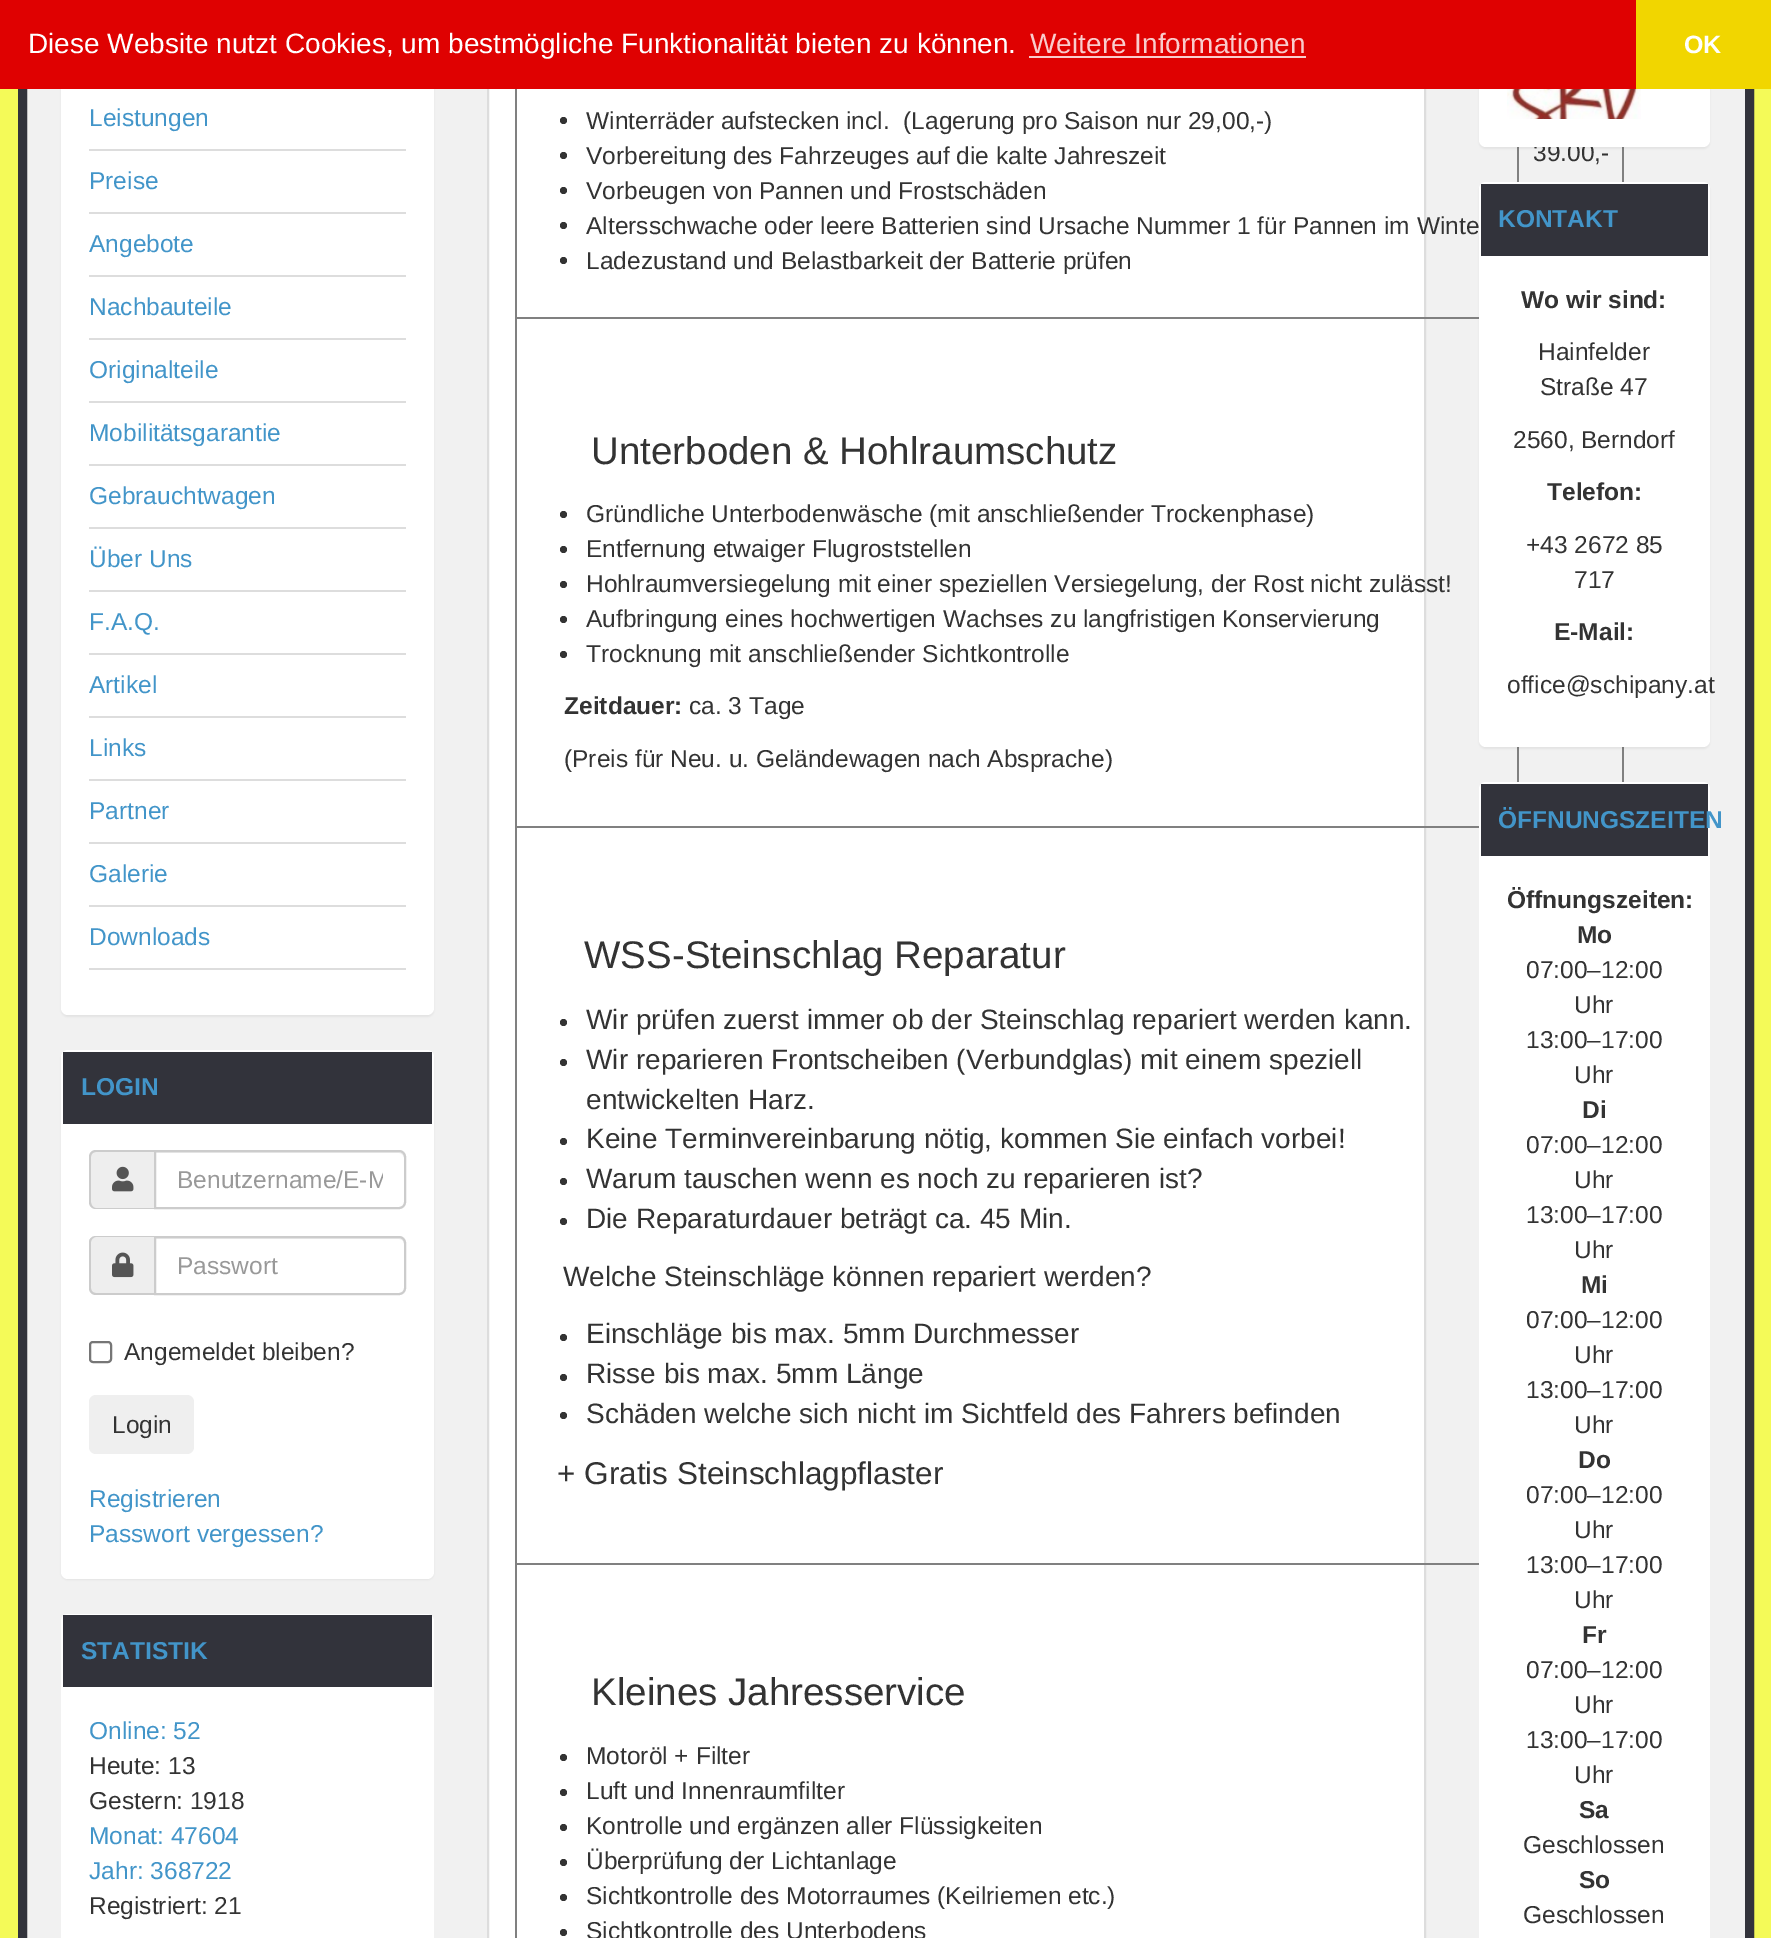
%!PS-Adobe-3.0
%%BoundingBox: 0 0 1771 1938
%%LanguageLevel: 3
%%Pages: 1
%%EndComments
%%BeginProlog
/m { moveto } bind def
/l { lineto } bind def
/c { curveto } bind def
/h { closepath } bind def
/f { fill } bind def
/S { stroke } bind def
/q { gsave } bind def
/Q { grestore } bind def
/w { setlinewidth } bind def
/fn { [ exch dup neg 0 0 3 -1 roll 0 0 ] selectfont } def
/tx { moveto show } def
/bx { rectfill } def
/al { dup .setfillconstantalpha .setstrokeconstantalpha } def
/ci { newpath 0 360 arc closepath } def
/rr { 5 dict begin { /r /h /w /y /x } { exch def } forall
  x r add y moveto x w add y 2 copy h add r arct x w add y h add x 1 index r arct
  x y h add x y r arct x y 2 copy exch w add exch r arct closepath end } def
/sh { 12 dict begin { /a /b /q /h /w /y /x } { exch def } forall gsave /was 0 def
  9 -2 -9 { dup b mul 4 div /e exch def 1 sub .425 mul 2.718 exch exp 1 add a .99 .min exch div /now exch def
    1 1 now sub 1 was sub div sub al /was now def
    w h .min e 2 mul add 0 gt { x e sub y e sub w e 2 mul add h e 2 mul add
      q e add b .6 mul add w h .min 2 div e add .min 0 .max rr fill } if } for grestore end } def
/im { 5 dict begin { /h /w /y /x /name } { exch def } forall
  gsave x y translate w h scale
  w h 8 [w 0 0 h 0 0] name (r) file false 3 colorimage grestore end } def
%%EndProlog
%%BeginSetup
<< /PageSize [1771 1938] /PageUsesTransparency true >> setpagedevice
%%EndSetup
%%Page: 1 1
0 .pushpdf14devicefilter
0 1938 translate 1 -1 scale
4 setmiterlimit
0.957 0.98 0.345 setrgbcolor
0 0 1771 1938 bx
0.945 setgray
27 89 1718 1849 bx
0.196 0.2 0.231 setrgbcolor
9 w
22.5 -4.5 1727 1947 rectstroke
0 setgray
61 -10 373 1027 7 1 0.05 sh
1 setgray
61 -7 373 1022 7 rr f
489 89 935 1849 bx
0.867 setgray
2 w
488 -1 937 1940 rectstroke
0.502 setgray
1622 147 2 635 bx
1517 147 2 35 bx
0 setgray
1479 -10 231 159 7 1 0.05 sh
/LiberationSans-Regular 24.5 fn
0.2 setgray
(39.00,-) 1533 161 tx
1 setgray
1479 -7 231 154 7 rr f
0.875 0.004 0.004 setrgbcolor
0 0 1636 89 bx
/LiberationSans-Regular 28 fn
1 setgray
(Diese Website nutzt Cookies, um bestmögliche Funktionalität bieten zu können.) 28 53 tx
0.976 0.8 0.8 setrgbcolor
(Weitere Informationen) 1030 53 tx
1029 56 277 2 bx
0.945 0.839 0 setrgbcolor
1636 0 135 89 bx
/LiberationSans-Bold 25 fn
1 setgray
(OK) 1684 53 tx
0.867 setgray
89 149 317 2 bx
/LiberationSans-Regular 24.5 fn
0.259 0.584 0.788 setrgbcolor
(Leistungen) 89 126 tx
0.867 setgray
89 212 317 2 bx
0.259 0.584 0.788 setrgbcolor
(Preise) 89 189 tx
0.867 setgray
89 275 317 2 bx
0.259 0.584 0.788 setrgbcolor
(Angebote) 89 252 tx
0.867 setgray
89 338 317 2 bx
0.259 0.584 0.788 setrgbcolor
(Nachbauteile) 89 315 tx
0.867 setgray
89 401 317 2 bx
0.259 0.584 0.788 setrgbcolor
(Originalteile) 89 378 tx
0.867 setgray
89 464 317 2 bx
0.259 0.584 0.788 setrgbcolor
(Mobilitätsgarantie) 89 441 tx
0.867 setgray
89 527 317 2 bx
0.259 0.584 0.788 setrgbcolor
(Gebrauchtwagen) 89 504 tx
0.867 setgray
89 590 317 2 bx
0.259 0.584 0.788 setrgbcolor
(Über Uns) 89 567 tx
0.867 setgray
89 653 317 2 bx
0.259 0.584 0.788 setrgbcolor
(F.A.Q.) 89 630 tx
0.867 setgray
89 716 317 2 bx
0.259 0.584 0.788 setrgbcolor
(Artikel) 89 693 tx
0.867 setgray
89 779 317 2 bx
0.259 0.584 0.788 setrgbcolor
(Links) 89 756 tx
0.867 setgray
89 842 317 2 bx
0.259 0.584 0.788 setrgbcolor
(Partner) 89 819 tx
0.867 setgray
89 905 317 2 bx
0.259 0.584 0.788 setrgbcolor
(Galerie) 89 882 tx
0.867 setgray
89 968 317 2 bx
0.259 0.584 0.788 setrgbcolor
(Downloads) 89 945 tx
0 setgray
61 1052 373 528 7 1 0.05 sh
1 setgray
61 1050 373 529 7 rr f
0.196 0.2 0.231 setrgbcolor
63 1052 369 72 bx
/LiberationSans-Bold 24.5 fn
0.259 0.584 0.788 setrgbcolor
(LOGIN) 81 1095 tx
0.933 setgray
96 1150 m 154 1150 l 154 1209 l 96 1209 l 92 1209 89 1206 89 1202 c 89 1157 l 89 1153 92 1150 96 1150 c h f
0.8 setgray
96 1150 m 154 1150 l 154 1209 l 96 1209 l 92 1209 89 1206 89 1202 c 89 1157 l 89 1153 92 1150 96 1150 c h 96 1152 m 154 1152 l 154 1208 l 96 1208 l 93 1208 91 1205 91 1202 c 91 1157 l 91 1154 93 1152 96 1152 c h eofill
(image0.raw) 112 1166 22 26 im
0.925 setgray
156 1153 m 399 1153 l 402 1153 404 1156 404 1158 c 404 1157 l 404 1154 402 1152 399 1152 c 156 1152 l h f
0.8 setgray
155 1151 m 399 1151 l 402.5 1151 405 1153.5 405 1157 c 405 1202 l 405 1205.5 402.5 1208 399 1208 c 155 1208 l h S
q
177 1166 206 28 rectclip
/LiberationSans-Regular 24.5 fn
0.6 setgray
(Benutzername/E-M) 177 1188 tx
Q
0.933 setgray
96 1236 m 154 1236 l 154 1295 l 96 1295 l 92 1295 89 1292 89 1288 c 89 1243 l 89 1239 92 1236 96 1236 c h f
0.8 setgray
96 1236 m 154 1236 l 154 1295 l 96 1295 l 92 1295 89 1292 89 1288 c 89 1242 l 89 1239 92 1236 96 1236 c h 96 1237 m 154 1237 l 154 1293 l 96 1293 l 93 1293 91 1291 91 1288 c 91 1242 l 91 1240 93 1237 96 1237 c h eofill
(image1.raw) 112 1252 22 26 im
0.925 setgray
156 1239 m 399 1239 l 402 1239 404 1241 404 1244 c 404 1241 403 1237 399 1237 c 156 1237 l h f
0.8 setgray
155 1237 m 399 1237 l 402.5 1237 405 1239.5 405 1243 c 405 1288 l 405 1291.5 402.5 1294 399 1294 c 155 1294 l h S
/LiberationSans-Regular 24.5 fn
0.6 setgray
(Passwort) 177 1274 tx
0.463 setgray
90 1342 21 20 3 rr S
0.2 setgray
(Angemeldet bleiben?) 124 1360 tx
0.937 setgray
89 1395 105 59 7 rr f
0.2 setgray
(Login) 112 1433 tx
0.259 0.584 0.788 setrgbcolor
(Registrieren) 89 1507 tx
(Passwort vergessen?) 89 1542 tx
1 setgray
61 1614 373 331 7 rr f
0.196 0.2 0.231 setrgbcolor
63 1615 369 72 bx
/LiberationSans-Bold 24.5 fn
0.259 0.584 0.788 setrgbcolor
(STATISTIK) 81 1659 tx
/LiberationSans-Regular 24.5 fn
(Online: 52) 89 1739 tx
0.2 setgray
(Heute: 13) 89 1774 tx
(Gestern: 1918) 89 1809 tx
0.259 0.584 0.788 setrgbcolor
(Monat: 47604) 89 1844 tx
(Jahr: 368722) 89 1879 tx
0.2 setgray
(Registriert: 21) 89 1914 tx
0.502 setgray
515 89 2 1849 bx
0.2 setgray
563.5 120.5 3.5 ci f
(Winterräder aufstecken incl.  \(Lagerung pro Saison nur 29,00,-\)) 586 129 tx
563.5 155.5 3.5 ci f
(Vorbereitung des Fahrzeuges auf die kalte Jahreszeit) 586 164 tx
563.5 190.5 3.5 ci f
(Vorbeugen von Pannen und Frostschäden) 586 199 tx
563.5 225.5 3.5 ci f
(Altersschwache oder leere Batterien sind Ursache Nummer 1 für Pannen im Winte) 586 234 tx
563.5 260.5 3.5 ci f
(Ladezustand und Belastbarkeit der Batterie prüfen) 586 269 tx
0.502 setgray
515 317 964 2 bx
/LiberationSans-Regular 38.5 fn
0.2 setgray
(Unterboden & Hohlraumschutz) 591 464 tx
563.5 514.5 3.5 ci f
/LiberationSans-Regular 24.5 fn
(Gründliche Unterbodenwäsche \(mit anschließender Trockenphase\)) 586 522 tx
563.5 549.5 3.5 ci f
(Entfernung etwaiger Flugroststellen) 586 557 tx
563.5 584.5 3.5 ci f
(Hohlraumversiegelung mit einer speziellen Versiegelung, der Rost nicht zulässt!) 586 592 tx
563.5 619.5 3.5 ci f
(Aufbringung eines hochwertigen Wachses zu langfristigen Konservierung) 586 627 tx
563.5 654.5 3.5 ci f
(Trocknung mit anschließender Sichtkontrolle) 586 662 tx
/LiberationSans-Bold 24.5 fn
(Zeitdauer:) 564 714 tx
/LiberationSans-Regular 24.5 fn
(ca. 3 Tage) 689 714 tx
(\(Preis für Neu. u. Geländewagen nach Absprache\)) 564 767 tx
0.502 setgray
1517 747 2 35 bx
515 826 964 2 bx
/LiberationSans-Regular 38.5 fn
0.2 setgray
(WSS-Steinschlag Reparatur) 584 968 tx
563.5 1022.5 3.5 ci f
/LiberationSans-Regular 28 fn
(Wir prüfen zuerst immer ob der Steinschlag repariert werden kann.) 586 1029 tx
563.5 1062.5 3.5 ci f
(Wir reparieren Frontscheiben \(Verbundglas\) mit einem speziell) 586 1069 tx
(entwickelten Harz.) 586 1109 tx
563.5 1141.5 3.5 ci f
(Keine Terminvereinbarung nötig, kommen Sie einfach vorbei!) 586 1148 tx
563.5 1181.5 3.5 ci f
(Warum tauschen wenn es noch zu reparieren ist?) 586 1188 tx
563.5 1221.5 3.5 ci f
(Die Reparaturdauer beträgt ca. 45 Min.) 586 1228 tx
(Welche Steinschläge können repariert werden?) 563 1286 tx
563.5 1337.5 3.5 ci f
(Einschläge bis max. 5mm Durchmesser) 586 1343 tx
563.5 1377.5 3.5 ci f
(Risse bis max. 5mm Länge) 586 1383 tx
563.5 1415.5 3.5 ci f
(Schäden welche sich nicht im Sichtfeld des Fahrers befinden) 586 1423 tx
/LiberationSans-Regular 31.5 fn
(+ Gratis Steinschlagpflaster) 557 1484 tx
0.502 setgray
515 1563 964 2 bx
/LiberationSans-Regular 38.5 fn
0.2 setgray
(Kleines Jahresservice) 591 1705 tx
563.5 1757.5 3.5 ci f
/LiberationSans-Regular 24.5 fn
(Motoröl + Filter) 586 1764 tx
563.5 1792.5 3.5 ci f
(Luft und Innenraumfilter) 586 1799 tx
563.5 1827.5 3.5 ci f
(Kontrolle und ergänzen aller Flüssigkeiten) 586 1834 tx
563.5 1862.5 3.5 ci f
(Überprüfung der Lichtanlage) 586 1869 tx
563.5 1897.5 3.5 ci f
(Sichtkontrolle des Motorraumes \(Keilriemen etc.\)) 586 1904 tx
563.5 1932.5 3.5 ci f
(Sichtkontrolle des Unterbodens) 586 1939 tx
(image2.raw) 1507 89 134 30 im
0 setgray
1479 184 231 565 7 1 0.05 sh
1 setgray
1479 182 231 565 7 rr f
0.196 0.2 0.231 setrgbcolor
1481 184 227 72 bx
/LiberationSans-Bold 24.5 fn
0.259 0.584 0.788 setrgbcolor
(KONTAKT) 1498 227 tx
0.2 setgray
(Wo wir sind:) 1521 308 tx
/LiberationSans-Regular 24.5 fn
(Hainfelder) 1538 360 tx
(Straße 47) 1540 395 tx
(2560, Berndorf) 1513 448 tx
/LiberationSans-Bold 24.5 fn
(Telefon:) 1547 500 tx
/LiberationSans-Regular 24.5 fn
(+43 2672 85) 1526 553 tx
(717) 1574 588 tx
/LiberationSans-Bold 24.5 fn
(E-Mail:) 1554 640 tx
/LiberationSans-Regular 24.5 fn
(office@schipany.at) 1507 693 tx
1 setgray
1479 782 231 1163 7 rr f
0.196 0.2 0.231 setrgbcolor
1481 784 227 72 bx
/LiberationSans-Bold 24.5 fn
0.259 0.584 0.788 setrgbcolor
(ÖFFNUNGSZEITEN) 1498 828 tx
0.2 setgray
(Öffnungszeiten:) 1507 908 tx
(Mo) 1577 943 tx
/LiberationSans-Regular 24.5 fn
(07:00–12:00) 1526 978 tx
(Uhr) 1574 1013 tx
(13:00–17:00) 1526 1048 tx
(Uhr) 1574 1083 tx
/LiberationSans-Bold 24.5 fn
(Di) 1582 1118 tx
/LiberationSans-Regular 24.5 fn
(07:00–12:00) 1526 1153 tx
(Uhr) 1574 1188 tx
(13:00–17:00) 1526 1223 tx
(Uhr) 1574 1258 tx
/LiberationSans-Bold 24.5 fn
(Mi) 1581 1293 tx
/LiberationSans-Regular 24.5 fn
(07:00–12:00) 1526 1328 tx
(Uhr) 1574 1363 tx
(13:00–17:00) 1526 1398 tx
(Uhr) 1574 1433 tx
/LiberationSans-Bold 24.5 fn
(Do) 1578 1468 tx
/LiberationSans-Regular 24.5 fn
(07:00–12:00) 1526 1503 tx
(Uhr) 1574 1538 tx
(13:00–17:00) 1526 1573 tx
(Uhr) 1574 1608 tx
/LiberationSans-Bold 24.5 fn
(Fr) 1582 1643 tx
/LiberationSans-Regular 24.5 fn
(07:00–12:00) 1526 1678 tx
(Uhr) 1574 1713 tx
(13:00–17:00) 1526 1748 tx
(Uhr) 1574 1783 tx
/LiberationSans-Bold 24.5 fn
(Sa) 1579 1818 tx
/LiberationSans-Regular 24.5 fn
(Geschlossen) 1523 1853 tx
/LiberationSans-Bold 24.5 fn
(So) 1579 1888 tx
/LiberationSans-Regular 24.5 fn
(Geschlossen) 1523 1923 tx
.poppdf14devicefilter showpage
%%EOF
